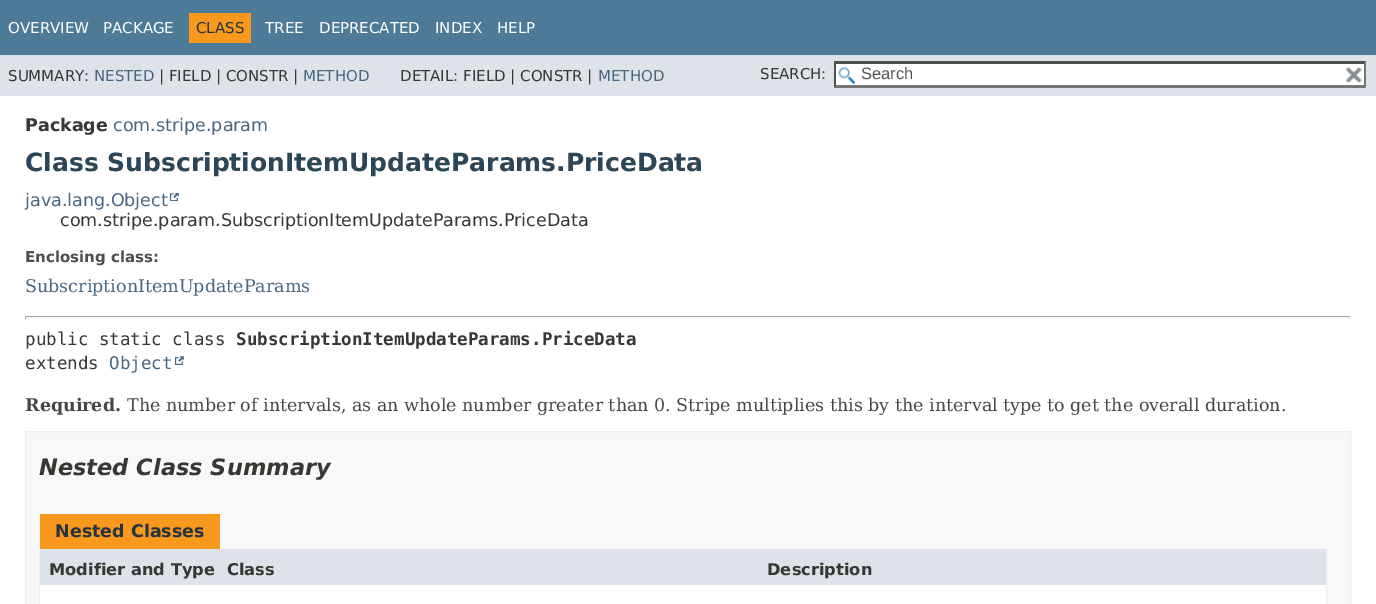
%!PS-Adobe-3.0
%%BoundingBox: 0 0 1376 604
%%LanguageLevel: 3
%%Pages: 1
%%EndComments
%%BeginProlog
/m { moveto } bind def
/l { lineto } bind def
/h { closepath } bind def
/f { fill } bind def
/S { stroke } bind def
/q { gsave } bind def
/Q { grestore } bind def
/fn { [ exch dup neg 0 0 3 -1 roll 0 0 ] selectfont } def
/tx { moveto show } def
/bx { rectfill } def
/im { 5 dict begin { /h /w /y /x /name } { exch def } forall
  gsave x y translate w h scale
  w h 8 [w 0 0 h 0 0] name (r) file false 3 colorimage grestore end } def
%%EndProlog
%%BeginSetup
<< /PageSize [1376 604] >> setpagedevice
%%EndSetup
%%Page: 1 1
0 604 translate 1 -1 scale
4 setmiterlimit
1 setgray
0 0 1376 604 bx
0.302 0.478 0.592 setrgbcolor
0 0 1376 55 bx
/DejaVuSans-Regular 15 fn
1 setgray
(OVERVIEW) 8 33 tx
(PACKAGE) 103 33 tx
0.973 0.596 0.114 setrgbcolor
189 13 62 30 bx
0.145 0.204 0.255 setrgbcolor
(CLASS) 196 33 tx
1 setgray
(TREE) 265 33 tx
(DEPRECATED) 319 33 tx
(INDEX) 435 33 tx
(HELP) 497 33 tx
0.871 0.89 0.914 setrgbcolor
0 55 1376 41 bx
0.208 0.22 0.2 setrgbcolor
(SUMMARY:) 8 81 tx
0.29 0.404 0.51 setrgbcolor
(NESTED) 94 81 tx
0.208 0.22 0.2 setrgbcolor
(| FIELD | CONSTR |) 159 81 tx
0.29 0.404 0.51 setrgbcolor
(METHOD) 303 81 tx
0.208 0.22 0.2 setrgbcolor
(DETAIL: FIELD | CONSTR |) 400 81 tx
0.29 0.404 0.51 setrgbcolor
(METHOD) 598 81 tx
0.208 0.22 0.2 setrgbcolor
(SEARCH:) 760 79 tx
1 setgray
834 61 532 27 bx
(image0.raw) 838 67 17 17 im
0.31 setgray
834 61 m 1366 61 l 1364 64 l 836 64 l h f
0.463 setgray
1366 61 m 1366 87.5 l 1364 85 l 1364 64 l h f
1366 88 m 834 88 l 836 85 l 1364 85 l h f
0.31 setgray
834 87.5 m 834 61 l 836 64 l 836 85 l h f
/LiberationSans-Regular 16.5 fn
0.329 setgray
(Search) 861 79 tx
(image1.raw) 1345 67 17 16 im
/DejaVuSans-Bold 17.5 fn
0.208 0.22 0.2 setrgbcolor
(Package) 25 131 tx
/DejaVuSans-Regular 17.5 fn
0.29 0.404 0.51 setrgbcolor
(com.stripe.param) 113 131 tx
/DejaVuSans-Bold 25 fn
0.173 0.271 0.341 setrgbcolor
(Class SubscriptionItemUpdateParams.PriceData) 25 171 tx
/DejaVuSans-Regular 17.5 fn
0.29 0.404 0.51 setrgbcolor
(java.lang.Object) 25 206 tx
(image2.raw) 170 193 9 8 im
0.208 0.22 0.2 setrgbcolor
(com.stripe.param.SubscriptionItemUpdateParams.PriceData) 60 226 tx
/DejaVuSans-Bold 15 fn
0.306 setgray
(Enclosing class:) 25 262 tx
/DejaVuSerif-Regular 17.5 fn
0.29 0.404 0.51 setrgbcolor
(SubscriptionItemUpdateParams) 25 292 tx
0.624 setgray
25 316 1326 1 bx
0.933 setgray
1350 316 1 3 bx
25 318 1326 1 bx
0.624 setgray
25 316 1 3 bx
/DejaVuSansMono-Regular 17.5 fn
0.208 0.22 0.2 setrgbcolor
(public static class) 25 345 tx
/DejaVuSansMono-Bold 17.5 fn
(SubscriptionItemUpdateParams.PriceData) 236 345 tx
/DejaVuSansMono-Regular 17.5 fn
(extends) 25 369 tx
0.29 0.404 0.51 setrgbcolor
(Object) 109 369 tx
(image3.raw) 175 356 9 9 im
/DejaVuSerif-Bold 17.5 fn
0.278 setgray
(Required.) 25 411 tx
/DejaVuSerif-Regular 17.5 fn
(The number of intervals, as an whole number greater than 0. Stripe multiplies this by the interval type to get the overall duration.) 127 411 tx
0.973 setgray
25.5 431.5 m 1350.5 431.5 l 1350.5 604.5 l 25.5 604.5 l h q f Q
0.929 setgray
S
/DejaVuSans-BoldItalic 22.5 fn
0.208 0.22 0.2 setrgbcolor
(Nested Class Summary) 39 475 tx
0.973 0.596 0.114 setrgbcolor
40 514 180 35 bx
/DejaVuSans-Bold 17.5 fn
0.145 0.204 0.255 setrgbcolor
(Nested Classes) 55 537 tx
0.933 setgray
1326 549 1 55 bx
39 549 1 55 bx
0.871 0.89 0.914 setrgbcolor
40 549 718 36 bx
/DejaVuSans-Bold 16.25 fn
0.208 0.22 0.2 setrgbcolor
(Modifier and Type) 49 575 tx
(Class) 227 575 tx
0.871 0.89 0.914 setrgbcolor
758 549 568 36 bx
0.208 0.22 0.2 setrgbcolor
(Description) 767 575 tx
1 setgray
40 585 718 19 bx
758 585 568 19 bx
showpage
%%EOF
